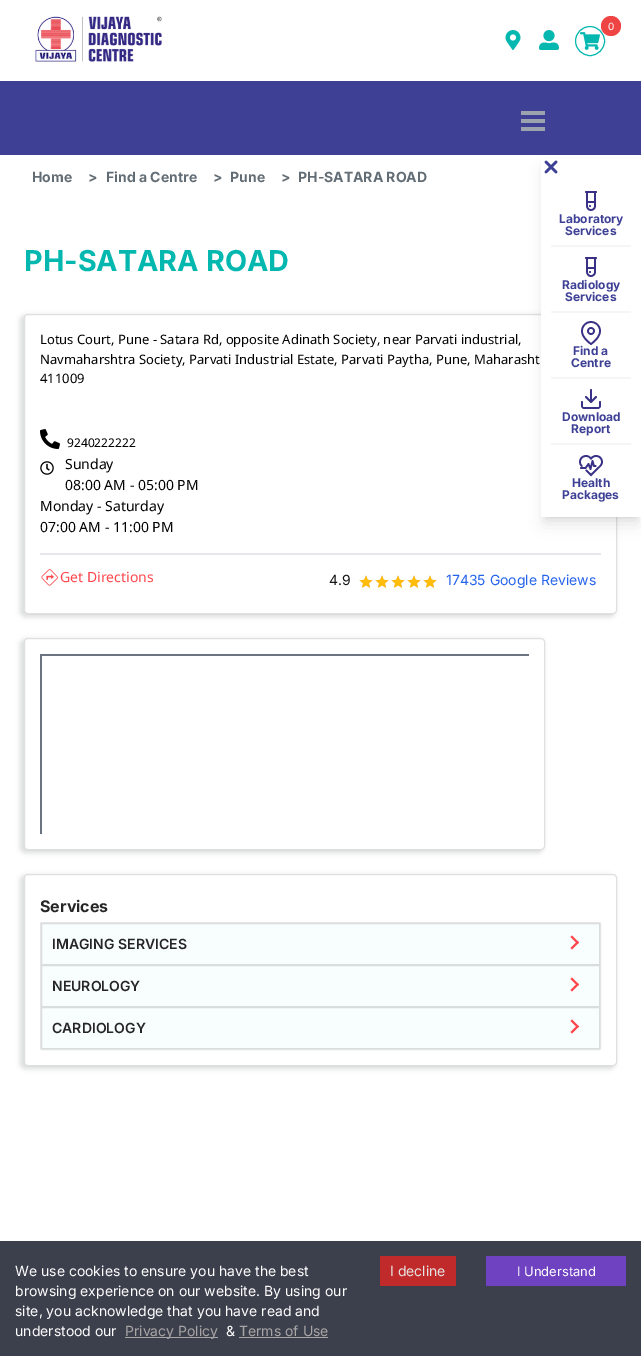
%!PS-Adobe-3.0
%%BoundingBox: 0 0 641 1356
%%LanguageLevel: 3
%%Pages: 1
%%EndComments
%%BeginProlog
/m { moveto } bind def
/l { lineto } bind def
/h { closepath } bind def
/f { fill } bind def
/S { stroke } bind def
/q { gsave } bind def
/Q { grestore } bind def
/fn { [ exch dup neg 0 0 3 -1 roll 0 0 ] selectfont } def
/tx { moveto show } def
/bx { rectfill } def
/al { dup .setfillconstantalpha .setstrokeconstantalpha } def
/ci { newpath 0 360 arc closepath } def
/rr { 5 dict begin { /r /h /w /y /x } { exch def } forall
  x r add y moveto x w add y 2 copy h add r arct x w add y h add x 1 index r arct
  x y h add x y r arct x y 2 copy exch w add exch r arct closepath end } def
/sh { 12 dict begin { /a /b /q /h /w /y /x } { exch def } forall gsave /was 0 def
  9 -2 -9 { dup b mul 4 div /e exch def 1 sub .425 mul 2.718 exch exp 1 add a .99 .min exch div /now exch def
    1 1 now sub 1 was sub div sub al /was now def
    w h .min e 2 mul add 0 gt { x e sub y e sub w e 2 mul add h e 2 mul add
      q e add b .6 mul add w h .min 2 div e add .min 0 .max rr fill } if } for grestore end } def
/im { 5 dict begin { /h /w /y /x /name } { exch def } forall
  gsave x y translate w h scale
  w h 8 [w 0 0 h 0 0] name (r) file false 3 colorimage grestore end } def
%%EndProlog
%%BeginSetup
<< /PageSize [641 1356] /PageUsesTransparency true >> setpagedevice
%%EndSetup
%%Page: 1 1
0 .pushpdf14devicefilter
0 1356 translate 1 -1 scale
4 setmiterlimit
1 setgray
0 0 641 1356 bx
(image0.raw) 35 16 127 46 im
0.016 0.718 0.686 setrgbcolor
590 41 14.5 ci S
(image1.raw) 580 32 20 18 im
0.937 0.267 0.267 setrgbcolor
611 26 10 ci f
/Inter-Regular 10 fn
1 setgray
(0) 608 30 tx
(image2.raw) 505 30 16 20 im
(image3.raw) 539 30 20 20 im
0.243 0.251 0.584 setrgbcolor
0 81 641 74 bx
0.612 0.639 0.686 setrgbcolor
521 111 24 4 bx
521 119 24 4 bx
521 127 24 4 bx
0.757 0.769 0.769 setrgbcolor
20 315 595 302 5 2.5 0.55 sh
1 setgray
24 314 593 300 4 rr f
0.12 al
0 setgray
24.5 314.5 592 299 3.5 rr S
1 al
545 165 92 352 0 3 0.1 sh
544 170 94 354 0 7.5 0.1 sh
1 setgray
541 159 100 358 bx
(image4.raw) 544 160 14 14 im
0.961 setgray
551 245 80 2 bx
(image5.raw) 585 191 12 20 im
/Inter-Bold 12 fn
0.243 0.251 0.584 setrgbcolor
(Laboratory) 559 223 tx
(Services) 565 235 tx
0.961 setgray
551 311 80 2 bx
(image5.raw) 585 257 12 20 im
0.243 0.251 0.584 setrgbcolor
(Radiology) 562 289 tx
(Services) 565 301 tx
0.961 setgray
551 377 80 2 bx
(image6.raw) 581 321 20 24 im
0.243 0.251 0.584 setrgbcolor
(Find a) 573 355 tx
(Centre) 571 367 tx
0.961 setgray
551 443 80 2 bx
(image7.raw) 581 389 20 20 im
0.243 0.251 0.584 setrgbcolor
(Download) 562 421 tx
(Report) 571 433 tx
(image8.raw) 579 455 24 22 im
(Health) 572 487 tx
(Packages) 562 499 tx
/Inter-Bold 14 fn
0.384 0.424 0.455 setrgbcolor
(Home) 32 182 tx
(>) 88 182 tx
(Find a Centre) 106 182 tx
(>) 213 182 tx
(Pune) 230 182 tx
(>) 281 182 tx
(PH-SATARA ROAD) 298 182 tx
/Inter-Bold 28.75 fn
0.016 0.718 0.686 setrgbcolor
(PH-SATARA ROAD) 24 271 tx
/NotoSans-Regular 13 fn
0 setgray
(Lotus Court, Pune - Satara Rd, opposite Adinath Society, near Parvati industrial,) 40 344 tx
(Navmaharshtra Society, Parvati Industrial Estate, Parvati Paytha, Pune, Maharasht) 40 364 tx
(411009) 40 383 tx
(image9.raw) 40 429 20 20 im
/NotoSans-Regular 12 fn
(9240222222) 67 447 tx
(image10.raw) 40 461 14 14 im
/NotoSans-Regular 14 fn
(Sunday) 65 469 tx
(08:00 AM - 05:00 PM) 65 490 tx
(Monday - Saturday) 40 511 tx
(07:00 AM - 11:00 PM) 40 532 tx
0.898 0.906 0.922 setrgbcolor
40 553 561 2 bx
(image11.raw) 41 569 17 17 im
1 0.275 0.298 setrgbcolor
(Get Directions) 60 582 tx
/Inter-Regular 14 fn
0.082 setgray
(4.9) 329 585 tx
(image12.raw) 359 575 14 13 im
(image12.raw) 375 575 14 13 im
(image12.raw) 391 575 14 13 im
(image12.raw) 407 575 14 13 im
(image12.raw) 423 575 14 13 im
(image13.raw) 359 575 14 13 im
(image13.raw) 375 575 14 13 im
(image13.raw) 391 575 14 13 im
(image13.raw) 407 575 14 13 im
(image13.raw) 423 575 14 13 im
0.145 0.388 0.922 setrgbcolor
(17435 Google Reviews) 446 585 tx
0.757 0.769 0.769 setrgbcolor
20 639 523 214 5 2.5 0.55 sh
1 setgray
24 638 521 212 4 rr f
0.12 al
0 setgray
24.5 638.5 520 211 3.5 rr S
1 al
0.42 0.447 0.502 setrgbcolor
40 654 489 2 bx
40 654 2 180 bx
0.757 0.769 0.769 setrgbcolor
20 875 595 194 5 2.5 0.55 sh
1 setgray
24 874 593 192 4 rr f
0.12 al
0 setgray
24.5 874.5 592 191 3.5 rr S
/Inter-Bold 16 fn
1 al
0.149 setgray
(Services) 40 912 tx
0.902 setgray
40.5 922.5 560 127 1.5 rr S
0.973 0.992 0.992 setrgbcolor
41.5 923.5 m 599.5 923.5 l 599.5 964.5 l 41.5 964.5 l h q f Q
0.851 0.867 0.867 setrgbcolor
S
/Inter-SemiBold 14 fn
0.149 setgray
(IMAGING SERVICES) 52 949 tx
1 0.275 0.298 setrgbcolor
570.5 937 m 572 935.5 l 579 942.5 l 577.5 944 l h f
0.973 0.992 0.992 setrgbcolor
41.5 965.5 m 599.5 965.5 l 599.5 1006.5 l 41.5 1006.5 l h q f Q
0.851 0.867 0.867 setrgbcolor
S
1 0.275 0.298 setrgbcolor
570.5 948 m 577.5 941 l 579 942.5 l 572 949.5 l h 570.5 979 m 572 977.5 l 579 984.5 l 577.5 986 l h f
0.149 setgray
(NEUROLOGY) 52 991 tx
0.973 0.992 0.992 setrgbcolor
41.5 1007.5 m 599.5 1007.5 l 599.5 1048.5 l 41.5 1048.5 l h q f Q
0.851 0.867 0.867 setrgbcolor
S
1 0.275 0.298 setrgbcolor
570.5 990 m 577.5 983 l 579 984.5 l 572 991.5 l h 570.5 1021 m 572 1019.5 l 579 1026.5 l 577.5 1028 l h f
0.149 setgray
(CARDIOLOGY) 52 1033 tx
1 0.275 0.298 setrgbcolor
570.5 1032 m 577.5 1025 l 579 1026.5 l 572 1033.5 l h f
0.235 0.251 0.302 setrgbcolor
0 1241 641 115 bx
/Inter-Regular 14 fn
1 setgray
(We use cookies to ensure you have the best) 15 1276 tx
(browsing experience on our website. By using our) 15 1296 tx
(site, you acknowledge that you have read and) 15 1316 tx
(understood our) 15 1336 tx
0.663 0.647 0.647 setrgbcolor
125 1337 93 1 bx
(Privacy Policy) 125 1336 tx
1 setgray
(&) 226 1336 tx
0.663 0.647 0.647 setrgbcolor
(Terms of Use) 239 1336 tx
239 1337 89 1 bx
0.757 0.165 0.165 setrgbcolor
380 1256 76 30 bx
0.898 setgray
(I decline) 390 1276 tx
0.435 0.259 0.757 setrgbcolor
486 1256 140 30 bx
/Inter-Regular 13 fn
1 setgray
(I Understand) 517 1276 tx
.poppdf14devicefilter showpage
%%EOF
